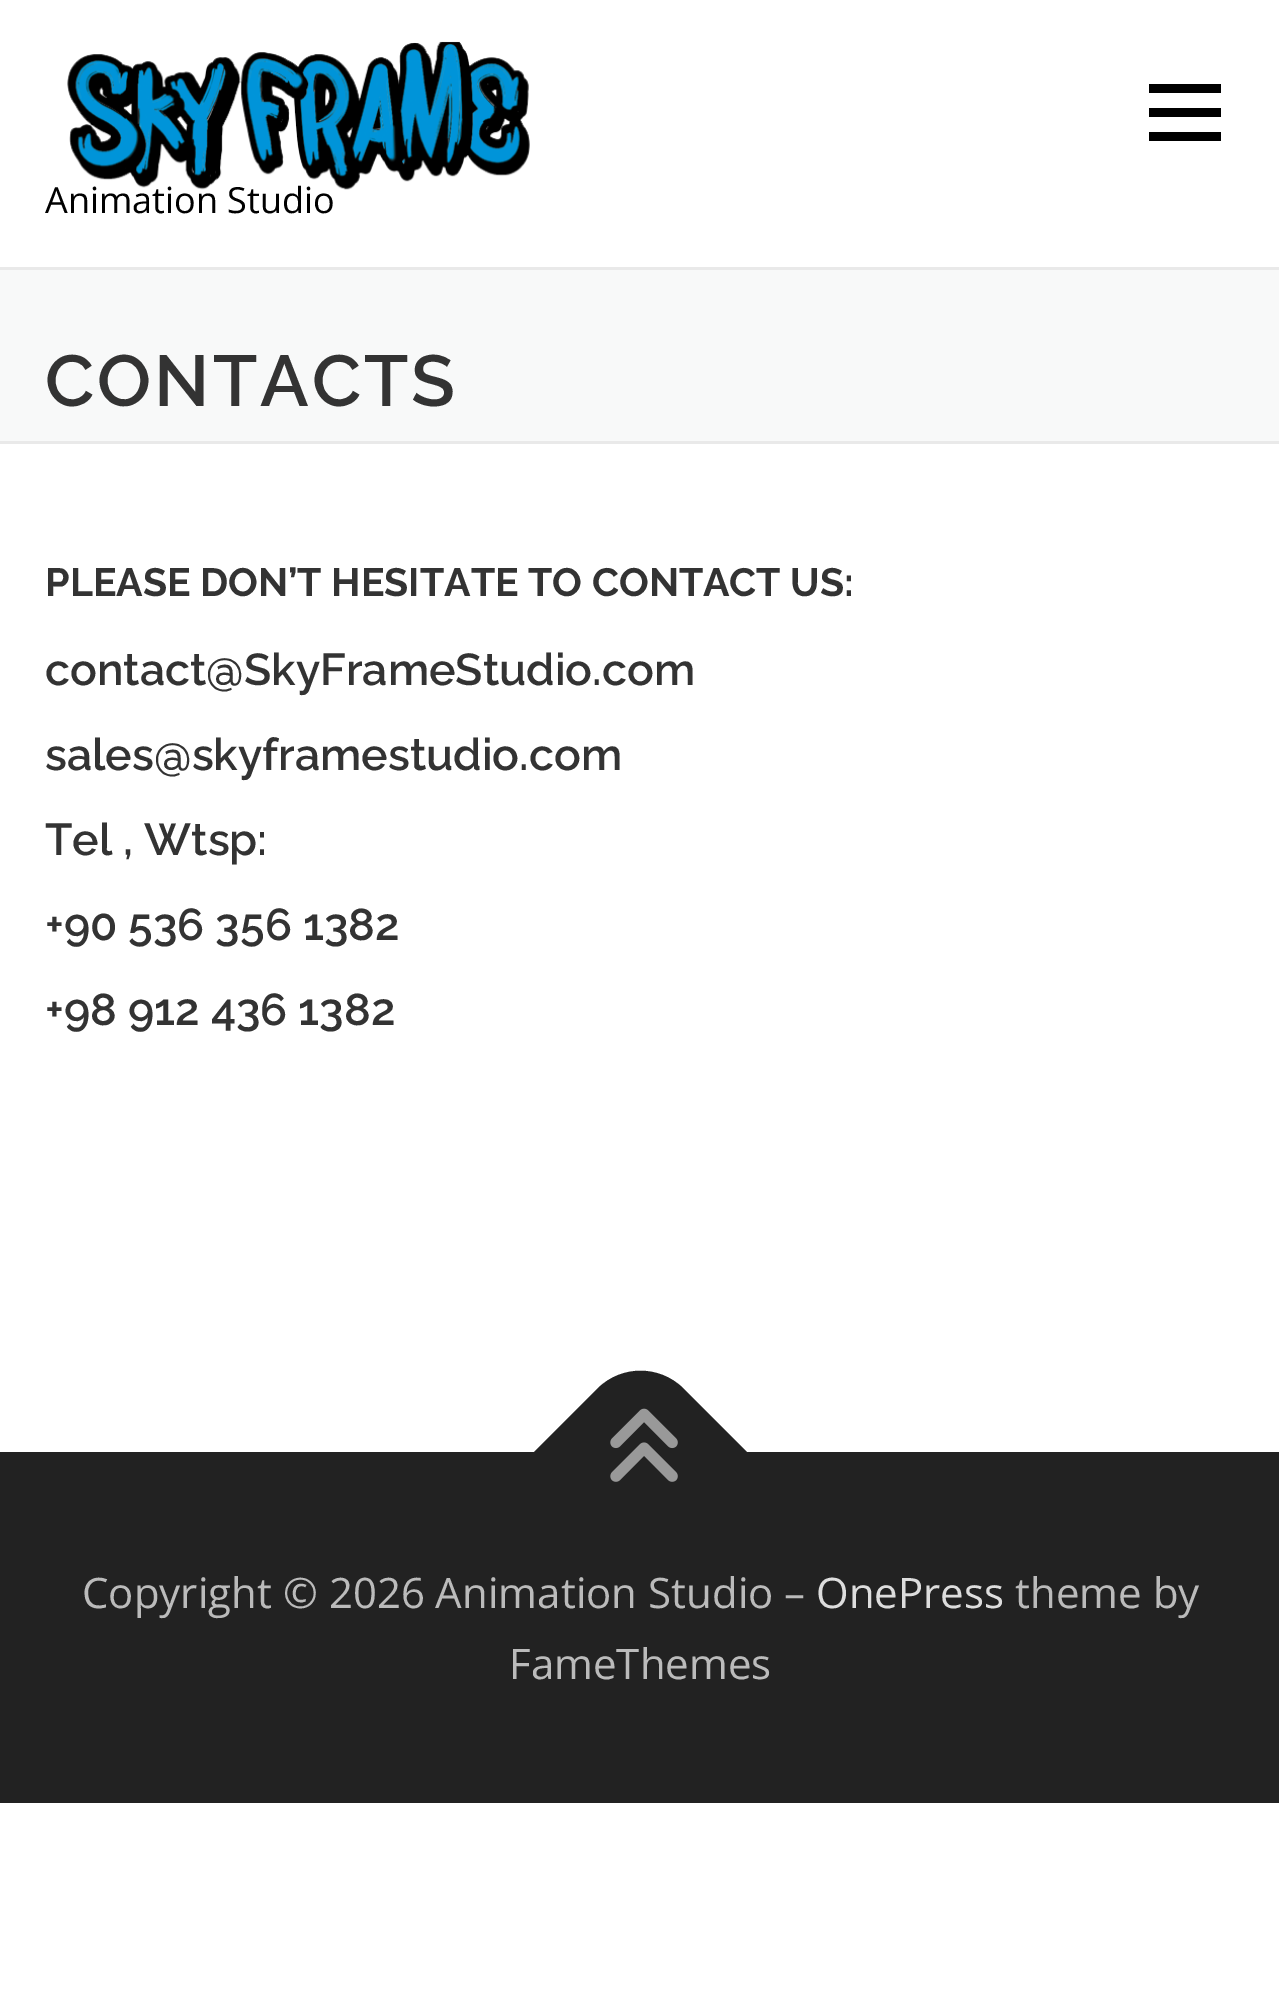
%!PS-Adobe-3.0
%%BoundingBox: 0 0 1279 2006
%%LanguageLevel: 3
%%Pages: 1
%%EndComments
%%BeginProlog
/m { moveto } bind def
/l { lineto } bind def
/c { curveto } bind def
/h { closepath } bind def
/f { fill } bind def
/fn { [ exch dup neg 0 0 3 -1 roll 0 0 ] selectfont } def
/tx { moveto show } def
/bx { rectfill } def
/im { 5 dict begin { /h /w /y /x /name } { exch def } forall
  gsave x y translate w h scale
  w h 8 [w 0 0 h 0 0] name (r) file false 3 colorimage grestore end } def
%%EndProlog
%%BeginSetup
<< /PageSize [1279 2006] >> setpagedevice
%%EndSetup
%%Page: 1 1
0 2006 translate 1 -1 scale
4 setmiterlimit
1 setgray
0 0 1279 2006 bx
0 setgray
1149 108 72 9 bx
1149 84 72 9 bx
1149 132 72 9 bx
(image0.raw) 67 41 463 149 im
/OpenSans-Regular 36 fn
(Animation Studio) 45 213 tx
0.973 0.976 0.976 setrgbcolor
0 270 1279 171 bx
0.914 setgray
0 267 1279 3 bx
0 441 1279 3 bx
/Raleway-SemiBold 72 fn
0.2 setgray
45 406 m 3 0 (CONTACTS) ashow
/Raleway-Bold 39.4 fn
(PLEASE DON’T HESITATE TO CONTACT US:) 45 596 tx
/Raleway-SemiBold 44.6 fn
(contact@SkyFrameStudio.com) 45 685 tx
(sales@skyframestudio.com) 45 770 tx
(Tel , Wtsp:) 45 855 tx
(+90 536 356 1382) 45 940 tx
(+98 912 436 1382) 45 1025 tx
0.133 setgray
0 1452 1279 351 bx
534 1452 m 598 1388 l 622 1365 659 1365 683 1388 c 747 1452 l 640 1558 l h f
(image1.raw) 610 1408 68 74 im
/OpenSans-Regular 42 fn
0.733 setgray
(Copyright © 2026 Animation Studio –) 82 1608 tx
0.867 setgray
(OnePress) 816 1608 tx
0.733 setgray
(theme by) 1015 1608 tx
(FameThemes) 509 1679 tx
showpage
%%EOF
